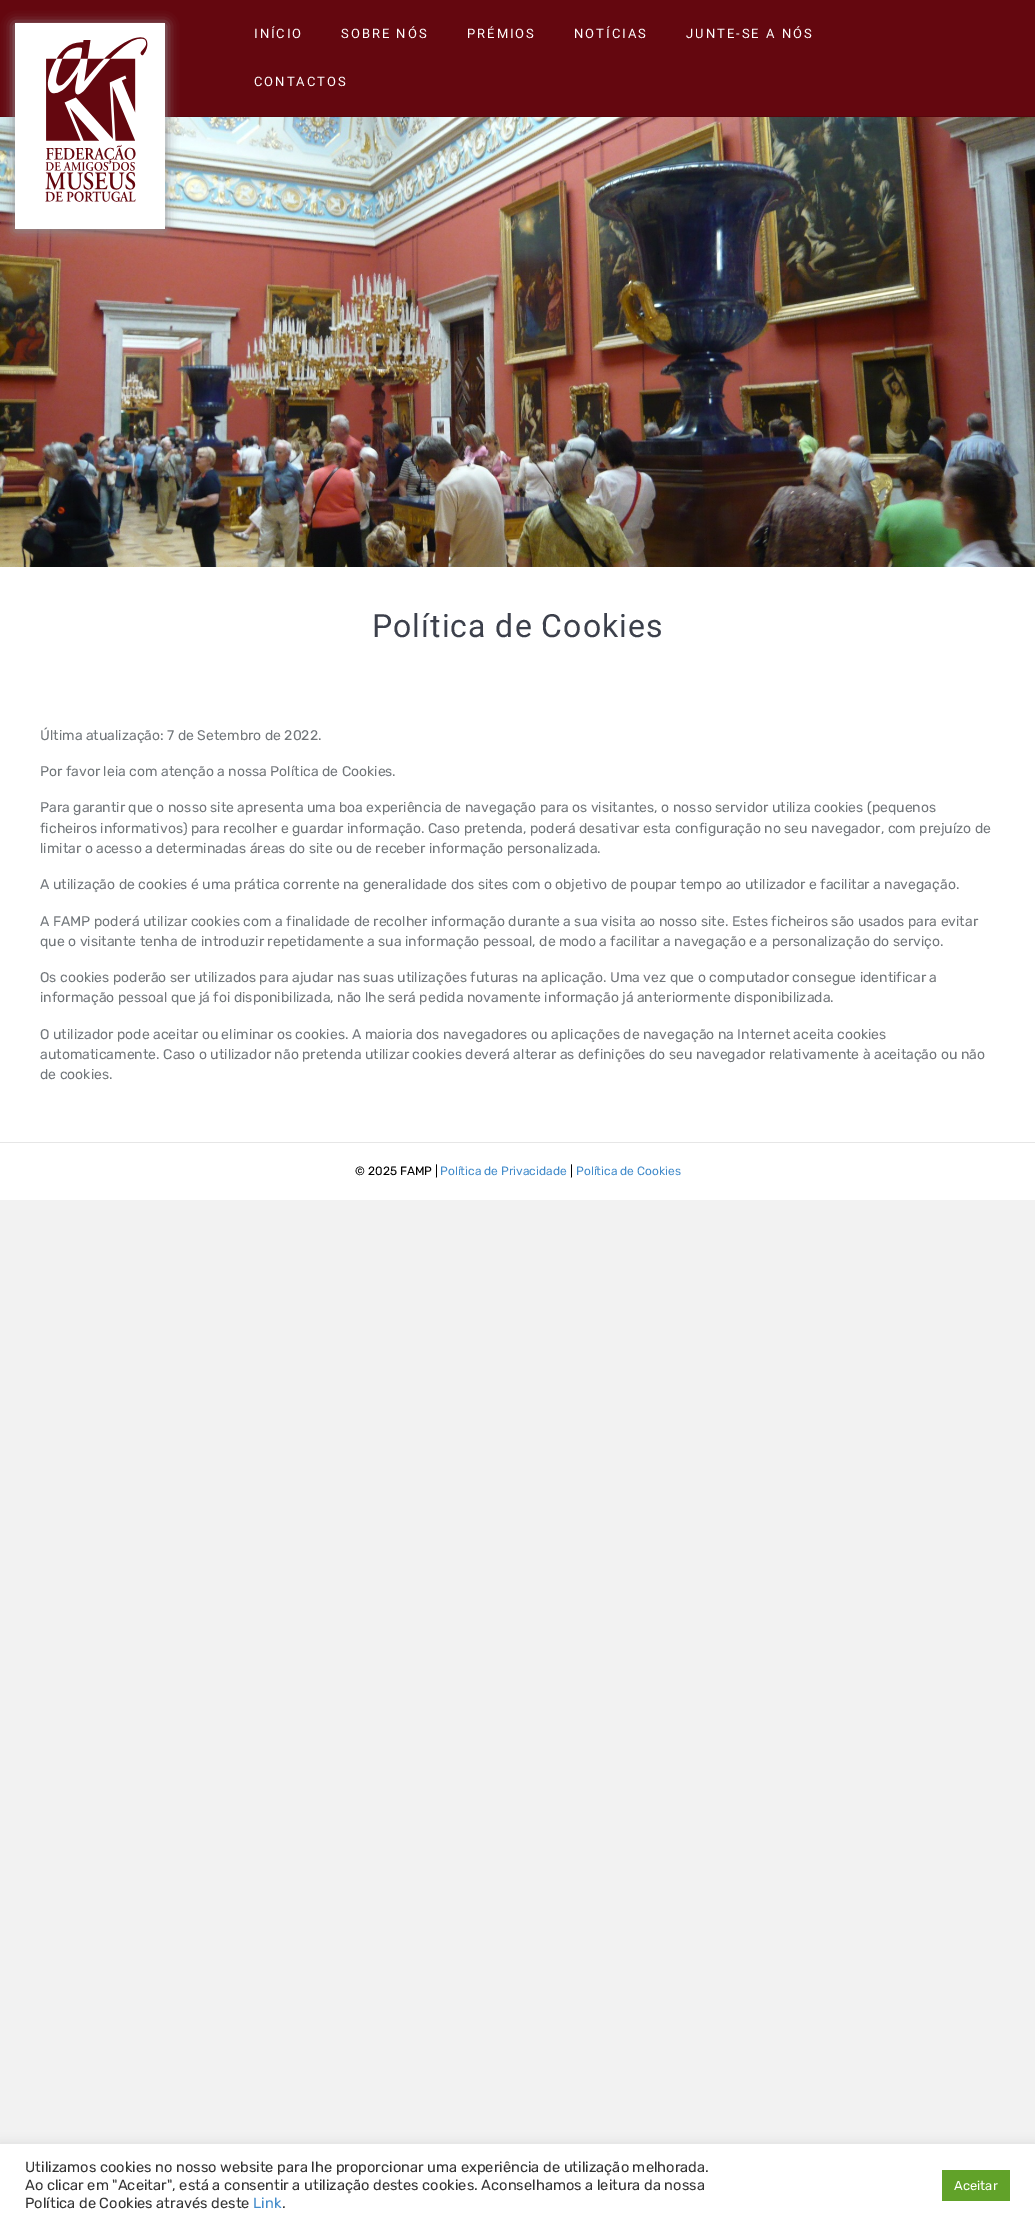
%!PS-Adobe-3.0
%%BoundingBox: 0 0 1035 2226
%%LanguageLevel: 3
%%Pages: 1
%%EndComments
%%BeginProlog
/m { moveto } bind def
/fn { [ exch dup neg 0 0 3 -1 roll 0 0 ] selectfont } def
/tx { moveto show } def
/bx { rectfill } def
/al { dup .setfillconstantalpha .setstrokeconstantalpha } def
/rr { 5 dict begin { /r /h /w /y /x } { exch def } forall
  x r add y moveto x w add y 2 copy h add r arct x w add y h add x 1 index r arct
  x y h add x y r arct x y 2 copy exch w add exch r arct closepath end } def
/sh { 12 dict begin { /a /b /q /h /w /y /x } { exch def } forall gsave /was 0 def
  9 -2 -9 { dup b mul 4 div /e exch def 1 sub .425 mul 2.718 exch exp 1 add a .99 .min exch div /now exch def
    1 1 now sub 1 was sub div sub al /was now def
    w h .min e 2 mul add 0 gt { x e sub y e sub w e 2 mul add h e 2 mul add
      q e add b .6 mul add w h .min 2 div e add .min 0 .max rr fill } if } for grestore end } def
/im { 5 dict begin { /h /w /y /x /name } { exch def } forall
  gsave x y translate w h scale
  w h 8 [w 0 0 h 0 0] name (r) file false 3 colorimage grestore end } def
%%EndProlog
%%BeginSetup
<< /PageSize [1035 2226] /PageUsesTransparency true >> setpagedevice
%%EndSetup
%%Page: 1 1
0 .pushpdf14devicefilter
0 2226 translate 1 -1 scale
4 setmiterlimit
0.949 setgray
0 0 1035 2226 bx
0.392 0.027 0.059 setrgbcolor
0 0 1035 116 bx
0.341 0.024 0.051 setrgbcolor
0 116 1035 1 bx
(image1.raw) 0 117 1035 450 im
0.569 0.557 0.569 setrgbcolor
14 24 152 208 0 6 1 sh
(image0.raw) 15 23 150 206 im
/Roboto-Regular 13 fn
1 setgray
254 38 m 2 0 (INÍCIO) ashow
341 38 m 2 0 (SOBRE NÓS) ashow
467 38 m 2 0 (PRÉMIOS) ashow
574 38 m 2 0 (NOTÍCIAS) ashow
686 38 m 2 0 (JUNTE-SE A NÓS) ashow
254 86 m 2 0 (CONTACTOS) ashow
0 567 1035 575 bx
/Roboto-Regular 32 fn
0.235 0.251 0.294 setrgbcolor
372 637 m 1 0 (Política de Cookies) ashow
/Rubik-Regular 14 fn
0.447 0.467 0.482 setrgbcolor
(Última atualização: 7 de Setembro de 2022.) 40 740 tx
(Por favor leia com atenção a nossa Política de Cookies.) 40 776 tx
(Para garantir que o nosso site apresenta uma boa experiência de navegação para os visitantes, o nosso servidor utiliza cookies \(pequenos) 40 812 tx
(ficheiros informativos\) para recolher e guardar informação. Caso pretenda, poderá desativar esta configuração no seu navegador, com prejuízo de) 40 833 tx
(limitar o acesso a determinadas áreas do site ou de receber informação personalizada.) 40 853 tx
(A utilização de cookies é uma prática corrente na generalidade dos sites com o objetivo de poupar tempo ao utilizador e facilitar a navegação.) 40 889 tx
(A FAMP poderá utilizar cookies com a finalidade de recolher informação durante a sua visita ao nosso site. Estes ficheiros são usados para evitar) 40 926 tx
(que o visitante tenha de introduzir repetidamente a sua informação pessoal, de modo a facilitar a navegação e a personalização do serviço.) 40 946 tx
(Os cookies poderão ser utilizados para ajudar nas suas utilizações futuras na aplicação. Uma vez que o computador consegue identificar a) 40 982 tx
(informação pessoal que já foi disponibilizada, não lhe será pedida novamente informação já anteriormente disponibilizada.) 40 1002 tx
(O utilizador pode aceitar ou eliminar os cookies. A maioria dos navegadores ou aplicações de navegação na Internet aceita cookies) 40 1039 tx
(automaticamente. Caso o utilizador não pretenda utilizar cookies deverá alterar as definições do seu navegador relativamente à aceitação ou não) 40 1059 tx
(de cookies.) 40 1079 tx
1 setgray
0 1143 1035 57 bx
0.902 setgray
0 1142 1035 1 bx
/Rubik-Regular 12 fn
0 setgray
(© 2025 FAMP |) 355 1175 tx
0.259 0.545 0.792 setrgbcolor
(Política de Privacidade) 440 1175 tx
0 setgray
(|) 570 1175 tx
0.259 0.545 0.792 setrgbcolor
(Política de Cookies) 576 1175 tx
0.675 0.671 0.671 setrgbcolor
0 2143 1035 82 0 5 0.3 sh
1 setgray
0 2144 1035 82 bx
/Rubik-Regular 14.65 fn
0.2 setgray
(Utilizamos cookies no nosso website para lhe proporcionar uma experiência de utilização melhorada.) 25 2172 tx
(Ao clicar em "Aceitar", está a consentir a utilização destes cookies. Aconselhamos a leitura da nossa) 25 2190 tx
(Política de Cookies através deste) 25 2208 tx
0.259 0.545 0.792 setrgbcolor
(Link) 253 2208 tx
0.2 setgray
(.) 282 2208 tx
0.38 0.635 0.161 setrgbcolor
942 2170 68 31 bx
/Rubik-Regular 13 fn
1 setgray
(Aceitar) 954 2190 tx
.poppdf14devicefilter showpage
%%EOF
